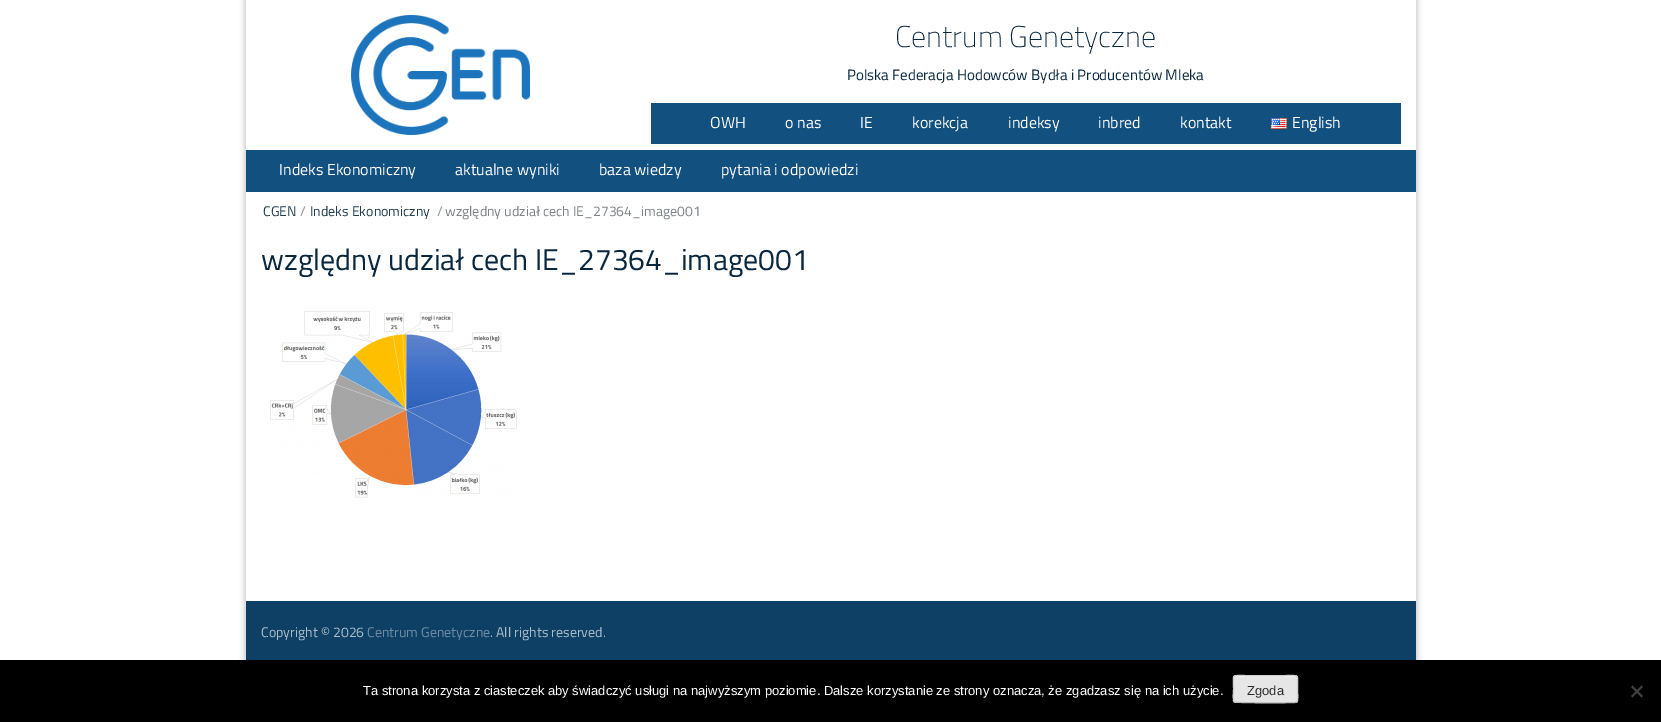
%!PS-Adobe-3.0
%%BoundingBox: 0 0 1661 722
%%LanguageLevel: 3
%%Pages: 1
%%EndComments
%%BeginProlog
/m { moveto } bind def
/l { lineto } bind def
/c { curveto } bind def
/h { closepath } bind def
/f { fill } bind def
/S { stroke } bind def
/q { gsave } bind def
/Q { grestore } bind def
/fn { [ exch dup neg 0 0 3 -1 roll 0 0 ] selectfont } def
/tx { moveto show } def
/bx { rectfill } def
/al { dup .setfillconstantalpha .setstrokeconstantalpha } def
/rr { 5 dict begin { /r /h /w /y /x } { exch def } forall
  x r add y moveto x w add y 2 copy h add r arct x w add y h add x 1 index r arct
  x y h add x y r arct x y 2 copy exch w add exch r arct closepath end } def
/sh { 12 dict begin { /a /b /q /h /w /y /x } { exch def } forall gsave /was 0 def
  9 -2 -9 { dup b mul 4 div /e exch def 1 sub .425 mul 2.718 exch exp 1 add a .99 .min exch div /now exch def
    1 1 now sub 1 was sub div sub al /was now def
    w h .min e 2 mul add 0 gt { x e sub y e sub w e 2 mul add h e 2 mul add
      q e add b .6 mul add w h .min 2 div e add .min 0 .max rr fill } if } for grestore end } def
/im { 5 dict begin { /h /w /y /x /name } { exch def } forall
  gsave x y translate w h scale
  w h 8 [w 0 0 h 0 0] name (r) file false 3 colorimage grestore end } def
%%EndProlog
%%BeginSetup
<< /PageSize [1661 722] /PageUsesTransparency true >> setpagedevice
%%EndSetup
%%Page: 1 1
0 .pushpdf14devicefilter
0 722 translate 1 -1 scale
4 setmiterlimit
1 setgray
0 0 1661 722 bx
q
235 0 m 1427 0 l 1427 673 l 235 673 l h 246 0 m 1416 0 l 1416 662 l 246 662 l h eoclip newpath
0 setgray
245 -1 1172 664 0 3 0.25 sh
Q
(image0.raw) 351 15 179 120 im
/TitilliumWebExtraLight-ExtraLight 30 fn
0.035 0.157 0.251 setrgbcolor
(Centrum Genetyczne) 895 47 tx
/TitilliumWeb-Regular 15 fn
(Polska Federacja Hodowców Bydła i Producentów Mleka) 847 80 tx
0.071 0.314 0.498 setrgbcolor
651 103 750 41 bx
/TitilliumWeb-Regular 16 fn
1 setgray
(OWH) 710 128 tx
(o nas) 785 128 tx
(IE) 860 128 tx
(korekcja) 912 128 tx
(indeksy) 1008 128 tx
(inbred) 1098 128 tx
(kontakt) 1180 128 tx
(image1.raw) 1271 118 16 11 im
(English) 1292 128 tx
0.071 0.314 0.498 setrgbcolor
246 150 1170 42 bx
1 setgray
(Indeks Ekonomiczny) 279 175 tx
(aktualne wyniki) 455 175 tx
(baza wiedzy) 599 175 tx
(pytania i odpowiedzi) 721 175 tx
/TitilliumWeb-Regular 14 fn
0.133 0.243 0.325 setrgbcolor
(CGEN) 263 216 tx
0.541 0.561 0.58 setrgbcolor
(/) 300 216 tx
0.133 0.243 0.325 setrgbcolor
(Indeks Ekonomiczny) 310 216 tx
0.541 0.561 0.58 setrgbcolor
(/) 437 216 tx
0.49 0.514 0.533 setrgbcolor
(względny udział cech IE_27364_image001) 445 216 tx
/TitilliumWeb-Regular 30 fn
0.035 0.157 0.251 setrgbcolor
(względny udział cech IE_27364_image001) 261 270 tx
(image2.raw) 270 311 247 187 im
0.055 0.251 0.4 setrgbcolor
246 601 1170 59 bx
/TitilliumWeb-Regular 14 fn
0.671 0.737 0.788 setrgbcolor
(Copyright © 2026) 261 637 tx
0.431 0.549 0.639 setrgbcolor
(Centrum Genetyczne) 367 637 tx
0.671 0.737 0.788 setrgbcolor
(. All rights reserved.) 490 637 tx
0 setgray
0 660 1661 62 bx
/LiberationSans-Regular 13 fn
1 setgray
(Ta strona korzysta z ciasteczek aby świadczyć usługi na najwyższym poziomie. Dalsze korzystanie ze strony oznacza, że zgadzasz się na ich użycie.) 363 695 tx
0.902 setgray
1233 675 65 28 3 rr f
0.953 setgray
1236 677 m 1295 677 l 1296 677 1297 678 1297 679 c 1297 673 1289 676 1285 676 c 1246 676 l 1242 676 1234 673 1234 679 c 1234 678 1235 677 1236 677 c h f
0.733 setgray
1297 702 m 1295 702.5 l 1290 703 1235.5 703 1234.5 702 c 1234 702 l S
0.8 setgray
1234 702 m 1232.5 700 1233.5 691.5 1233.5 689 c 1233.5 673.5 1230.5 675.5 1246 675.5 c 1285 675.5 l 1300.5 675.5 1297.5 673.5 1297.5 689 c 1297.5 691.5 1298.5 700 1297 702 c S
0.18 setgray
(Zgoda) 1247 695 tx
0.251 setgray
1641.5 685.5 m 1643 687 l 1632.5 697.5 l 1631 696 l h f
1631 687 m 1632.5 685.5 l 1643 696 l 1641.5 697.5 l h f
.poppdf14devicefilter showpage
%%EOF
